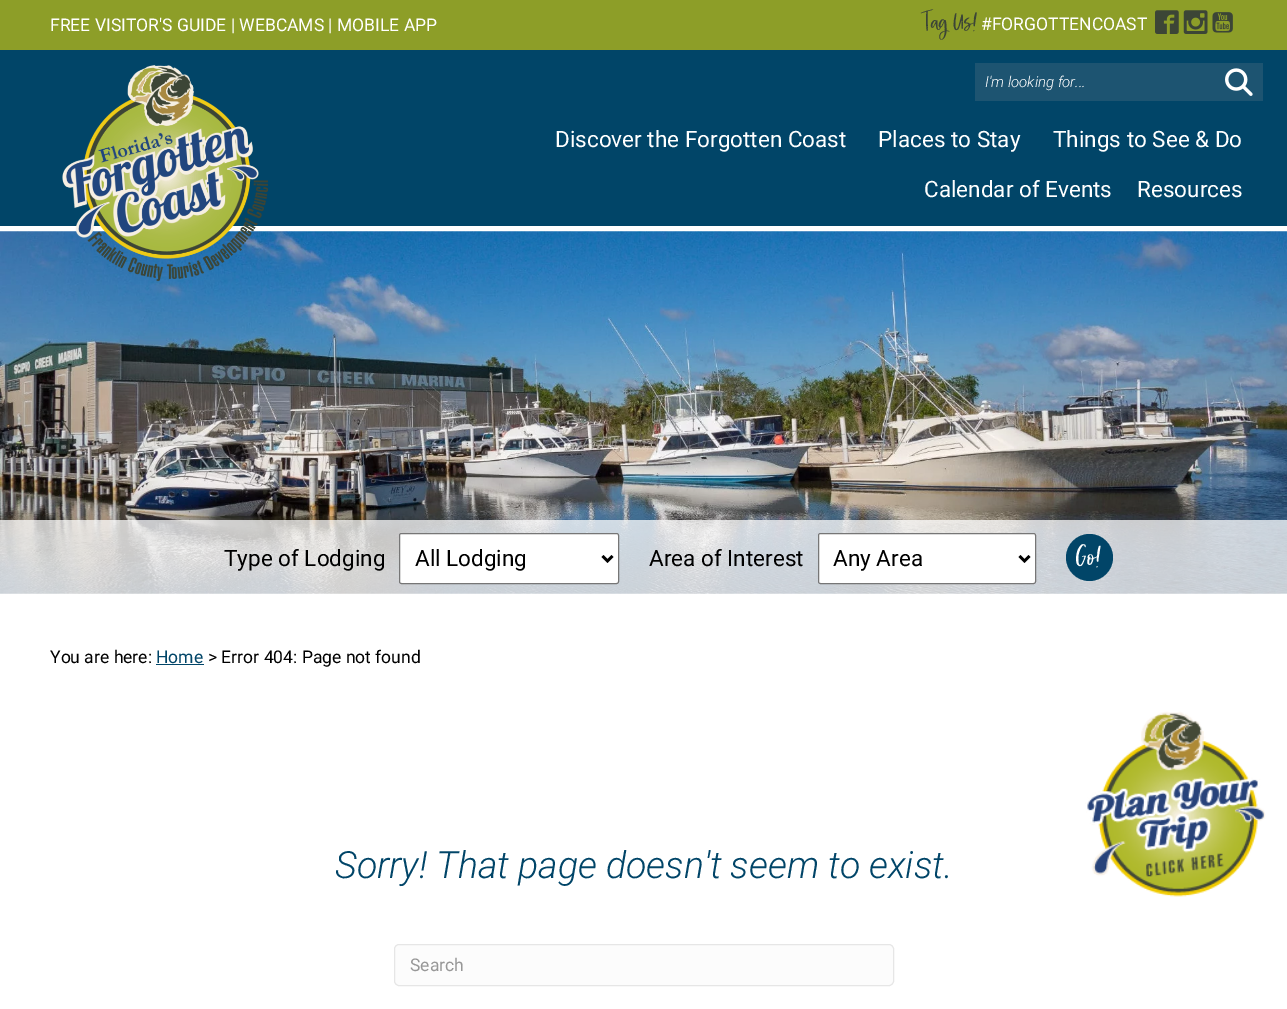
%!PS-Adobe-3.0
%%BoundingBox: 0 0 1287 1009
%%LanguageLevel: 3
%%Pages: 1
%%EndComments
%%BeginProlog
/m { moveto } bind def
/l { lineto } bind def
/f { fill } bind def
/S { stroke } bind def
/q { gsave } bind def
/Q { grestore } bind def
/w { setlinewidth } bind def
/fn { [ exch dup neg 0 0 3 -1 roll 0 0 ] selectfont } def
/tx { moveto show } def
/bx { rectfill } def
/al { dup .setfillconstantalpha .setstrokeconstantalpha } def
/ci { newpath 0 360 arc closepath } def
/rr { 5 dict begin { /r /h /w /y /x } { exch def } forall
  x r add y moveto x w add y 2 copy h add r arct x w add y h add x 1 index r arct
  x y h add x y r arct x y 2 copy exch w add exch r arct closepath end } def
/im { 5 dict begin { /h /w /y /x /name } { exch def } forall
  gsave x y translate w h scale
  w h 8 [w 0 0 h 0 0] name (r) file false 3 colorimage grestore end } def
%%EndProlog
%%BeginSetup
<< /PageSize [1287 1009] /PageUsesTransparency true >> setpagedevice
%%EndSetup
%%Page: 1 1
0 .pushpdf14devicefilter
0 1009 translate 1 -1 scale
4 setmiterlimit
1 setgray
0 0 1287 1009 bx
0.553 0.62 0.157 setrgbcolor
0 0 1287 50 bx
/Roboto-Regular 17.5 fn
1 setgray
(FREE VISITOR'S GUIDE | WEBCAMS | MOBILE APP) 50 31 tx
/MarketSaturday-Medium 28 fn
0.235 0.271 0.212 setrgbcolor
(Tag Us!) 923 30 tx
/Roboto-Regular 17.5 fn
1 setgray
(#FORGOTTENCOAST) 981 30 tx
(image0.raw) 1155 10 24 24 im
(image1.raw) 1183 10 25 24 im
(image2.raw) 1212 12 21 21 im
0.004 0.271 0.408 setrgbcolor
0 50 1287 176 bx
(image5.raw) 0 231 1287 363 im
(image3.raw) 62 65 206 217 im
0.114 0.329 0.443 setrgbcolor
975 63 288 38 bx
/Roboto-LightItalic 15 fn
1 setgray
(I'm looking for...) 985 87 tx
(image4.raw) 1225 68 28 28 im
/Roboto-Regular 22.5 fn
(Discover the Forgotten Coast) 555 147 tx
(Places to Stay) 878 147 tx
(Things to See & Do) 1053 147 tx
(Calendar of Events) 924 197 tx
(Resources) 1137 197 tx
0.75 al
0 520 1287 74 bx
1 al
0 setgray
(Type of Lodging) 224 566 tx
1 setgray
399.5 533.5 219 50 2 rr q f Q
0.463 setgray
S
0 setgray
2.5 w
602.5 556 m 607.5 561 l 612.5 556 l S
(All Lodging) 415 566 tx
(Area of Interest) 649 566 tx
1 setgray
818.5 533.5 217 50 2 rr q f Q
0.463 setgray
1 w
S
0 setgray
2.5 w
1019.5 556 m 1024.5 561 l 1029.5 556 l S
(Any Area) 833 566 tx
0.004 0.271 0.408 setrgbcolor
1089.5 557.5 23.5 ci f
/MarketSaturday-Medium 32 fn
1 setgray
(Go!) 1076 566 tx
/Roboto-Regular 17.5 fn
0 setgray
(You are here:) 50 663 tx
0.004 0.271 0.408 setrgbcolor
(Home) 156 663 tx
156 664 48 1 bx
0 setgray
(> Error 404: Page not found) 208 663 tx
/Roboto-LightItalic 37.5 fn
0.004 0.271 0.408 setrgbcolor
(Sorry! That page doesn't seem to exist.) 335 878 tx
0.988 setgray
394.5 944.5 499 41 4.5 rr q f Q
0.902 setgray
1 w
S
/Roboto-Regular 17.5 fn
0.592 setgray
(Search) 410 971 tx
(image6.raw) 1085 711 181 186 im
.poppdf14devicefilter showpage
%%EOF
